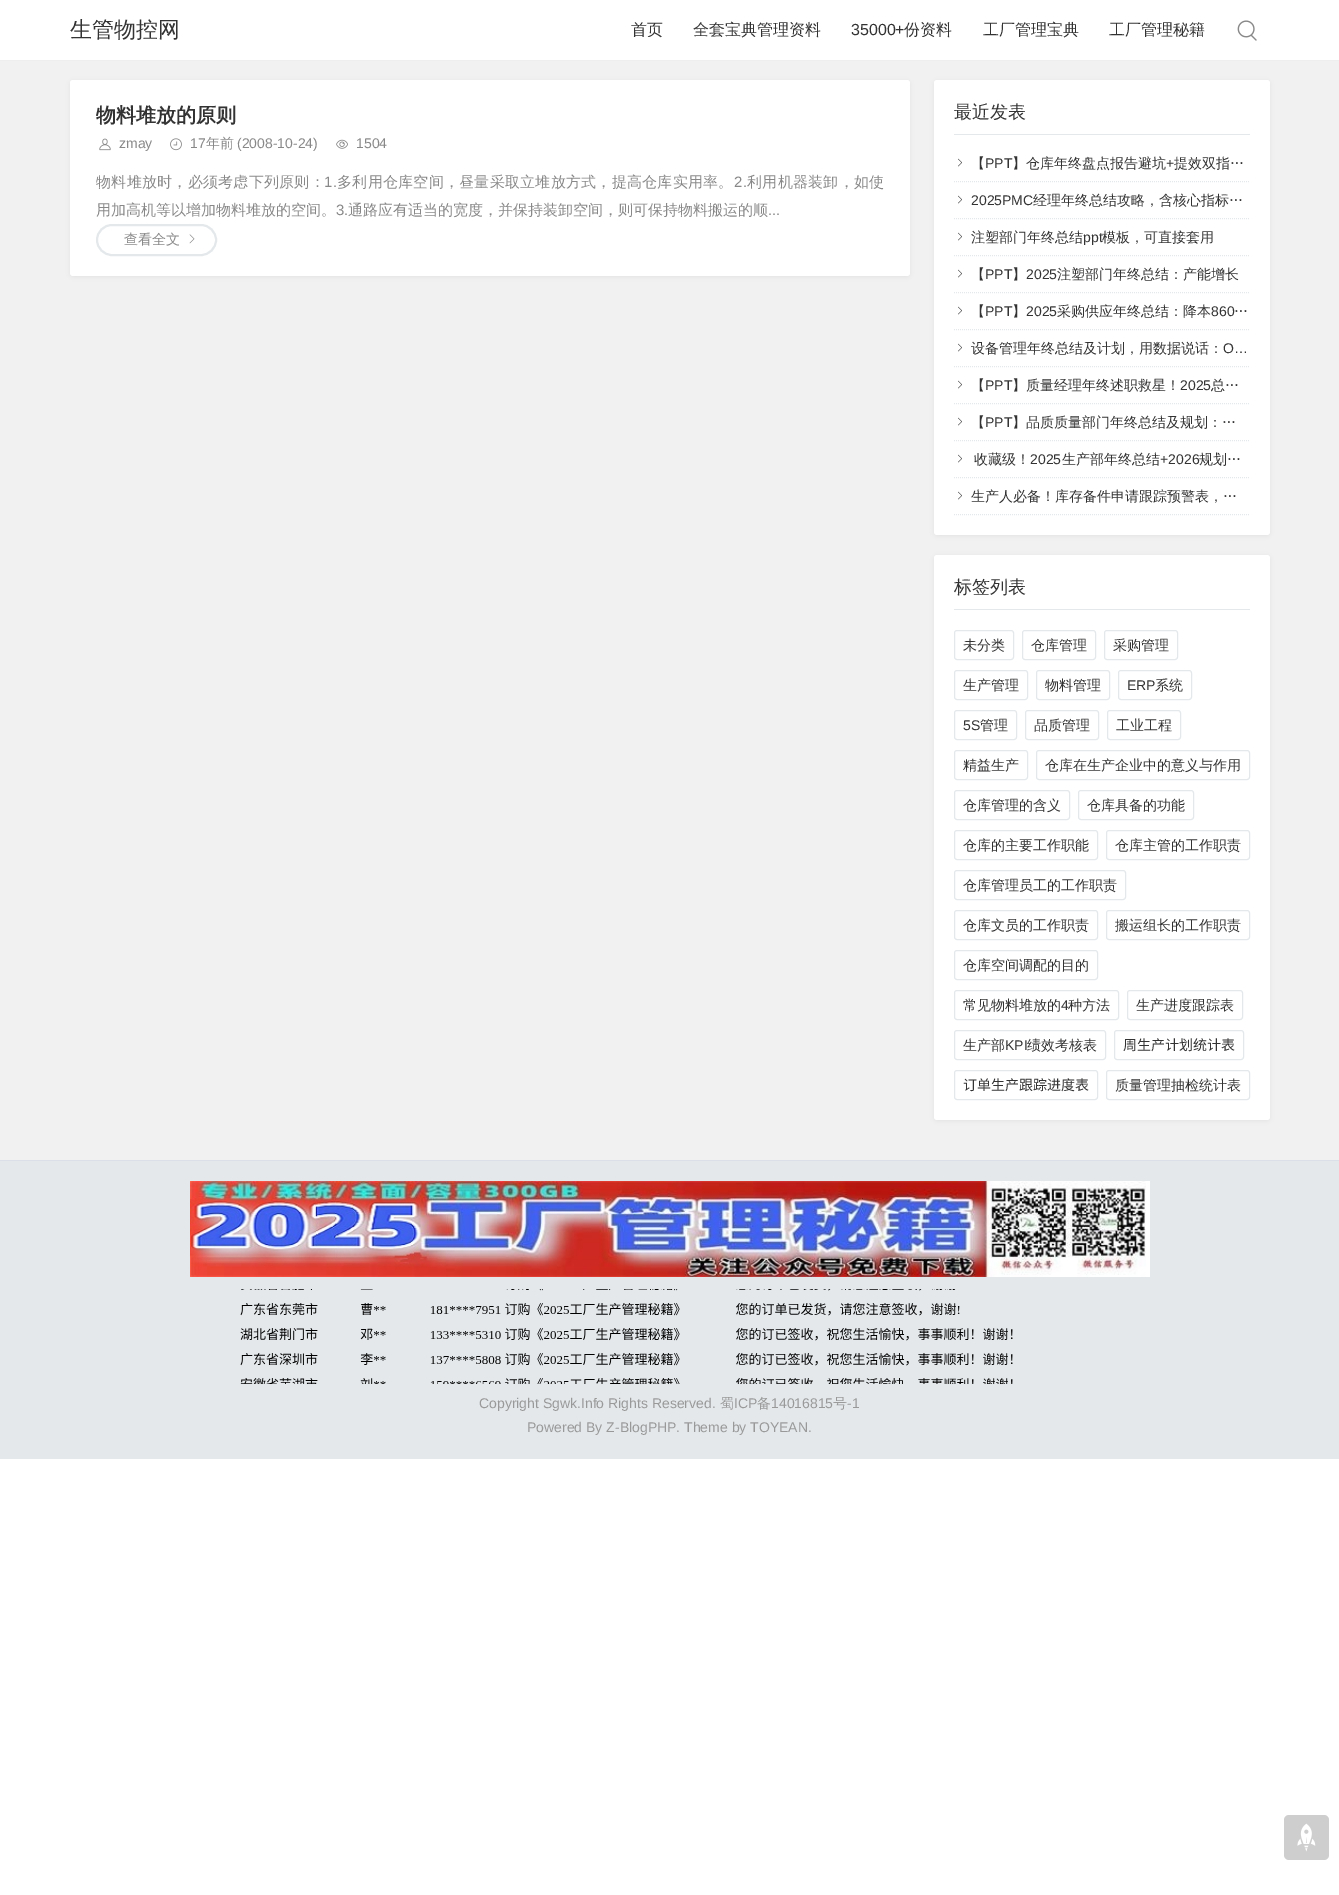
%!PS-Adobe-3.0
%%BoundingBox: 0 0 1339 1895
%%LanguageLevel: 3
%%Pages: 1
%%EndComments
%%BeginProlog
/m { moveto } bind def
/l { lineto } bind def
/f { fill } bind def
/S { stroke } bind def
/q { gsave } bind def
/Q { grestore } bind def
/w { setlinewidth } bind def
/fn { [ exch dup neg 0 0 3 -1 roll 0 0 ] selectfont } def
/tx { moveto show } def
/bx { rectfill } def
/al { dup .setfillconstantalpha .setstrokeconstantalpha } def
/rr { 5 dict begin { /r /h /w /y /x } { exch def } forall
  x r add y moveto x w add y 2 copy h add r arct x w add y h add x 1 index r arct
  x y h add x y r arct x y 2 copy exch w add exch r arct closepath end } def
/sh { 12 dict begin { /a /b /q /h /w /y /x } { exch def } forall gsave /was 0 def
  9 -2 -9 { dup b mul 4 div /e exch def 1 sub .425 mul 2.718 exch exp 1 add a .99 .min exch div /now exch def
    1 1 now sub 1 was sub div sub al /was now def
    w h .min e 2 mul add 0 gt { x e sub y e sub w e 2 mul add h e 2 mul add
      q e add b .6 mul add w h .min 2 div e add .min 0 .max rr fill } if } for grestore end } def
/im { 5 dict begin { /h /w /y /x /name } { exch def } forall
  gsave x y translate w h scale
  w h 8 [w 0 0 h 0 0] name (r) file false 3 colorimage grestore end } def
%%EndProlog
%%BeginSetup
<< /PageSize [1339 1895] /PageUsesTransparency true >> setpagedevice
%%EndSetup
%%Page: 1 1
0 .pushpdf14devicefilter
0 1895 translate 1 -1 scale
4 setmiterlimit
1 setgray
0 0 1339 1895 bx
0.945 setgray
0 61 1339 1099 bx
0.933 setgray
0 60 1339 1 bx
/WenQuanYiZenHei-Medium 22 fn
0.2 setgray
(生管物控网) 70 37 tx
/WenQuanYiZenHei-Medium 16 fn
(首页) 631 35 tx
(全套宝典管理资料) 693 35 tx
/LiberationSans-Regular 16 fn
(35000+) 851 35 tx
/WenQuanYiZenHei-Medium 16 fn
(份资料) 904 35 tx
(工厂管理宝典) 983 35 tx
(工厂管理秘籍) 1109 35 tx
(image0.raw) 1237 20 20 21 im
0 setgray
70 81 840 196 3 2.5 0.05 sh
1 setgray
70 80 840 196 3 rr f
/WenQuanYiZenHei-Bold 20 fn
0.2 setgray
(物料堆放的原则) 96 122 tx
(image1.raw) 99 138 12 13 im
/LiberationSans-Regular 14 fn
0.533 setgray
(zmay) 119 148 tx
(image2.raw) 170 138 12 13 im
(17) 190 148 tx
/WenQuanYiZenHei-Medium 14 fn
(年前) 206 148 tx
/LiberationSans-Regular 14 fn
(\(2008-10-24\)) 237 148 tx
(image3.raw) 336 139 12 10 im
(1504) 356 148 tx
q
96 168 788 56 rectclip
/WenQuanYiZenHei-Medium 15 fn
96 187 m 0.25 0 (物料堆放时，必须考虑下列原则：) ashow
Q
/LiberationSans-Regular 15 fn
324 187 m 0.25 0 (1.) ashow
/WenQuanYiZenHei-Medium 15 fn
337 187 m 0.25 0 (多利用仓库空间，昼量采取立堆放方式，提高仓库实用率。) ashow
/LiberationSans-Regular 15 fn
734 187 m 0.25 0 (2.) ashow
/WenQuanYiZenHei-Medium 15 fn
747 187 m 0.25 0 (利用机器装卸，如使) ashow
(用加高机等以增加物料堆放的空间。) 96 215 tx
/LiberationSans-Regular 15 fn
(3.) 336 215 tx
/WenQuanYiZenHei-Medium 15 fn
(通路应有适当的宽度，并保持装卸空间，则可保持物料搬运的顺) 348 215 tx
/LiberationSans-Regular 15 fn
(...) 768 215 tx
0.894 0.91 0.922 setrgbcolor
2 w
97 225 119 30 15 rr S
/WenQuanYiZenHei-Medium 14 fn
0.533 setgray
(查看全文) 124 244 tx
(image4.raw) 189 234 6 10 im
0 setgray
934 81 336 455 3 2.5 0.05 sh
1 setgray
934 80 336 455 3 rr f
0.894 0.91 0.922 setrgbcolor
954 134 296 1 bx
/WenQuanYiZenHei-Medium 18 fn
0.2 setgray
(最近发表) 954 118 tx
0.894 0.91 0.922 setrgbcolor
1 w
[1 1] 0 setdash
954 181.5 m 1250 181.5 l S
(image5.raw) 958 158 4 9 im
/WenQuanYiZenHei-Medium 14 fn
0.2 setgray
(【) 971 168 tx
/LiberationSans-Regular 14 fn
(PPT) 985 168 tx
/WenQuanYiZenHei-Medium 14 fn
(】仓库年终盘点报告避坑) 1012 168 tx
/LiberationSans-Regular 14 fn
(+) 1166 168 tx
/WenQuanYiZenHei-Medium 14 fn
(提效双指…) 1174 168 tx
0.894 0.91 0.922 setrgbcolor
954 218.5 m 1250 218.5 l S
(image5.raw) 958 195 4 9 im
/LiberationSans-Regular 14 fn
0.2 setgray
(2025PMC) 971 205 tx
/WenQuanYiZenHei-Medium 14 fn
(经理年终总结攻略，含核心指标…) 1033 205 tx
0.894 0.91 0.922 setrgbcolor
954 255.5 m 1250 255.5 l S
(image5.raw) 958 232 4 9 im
0.2 setgray
(注塑部门年终总结) 971 242 tx
/LiberationSans-Regular 14 fn
(ppt) 1083 242 tx
/WenQuanYiZenHei-Medium 14 fn
(模板，可直接套用) 1102 242 tx
0.894 0.91 0.922 setrgbcolor
954 292.5 m 1250 292.5 l S
(image5.raw) 958 269 4 9 im
0.2 setgray
(【) 971 279 tx
/LiberationSans-Regular 14 fn
(PPT) 985 279 tx
/WenQuanYiZenHei-Medium 14 fn
(】) 1012 279 tx
/LiberationSans-Regular 14 fn
(2025) 1026 279 tx
/WenQuanYiZenHei-Medium 14 fn
(注塑部门年终总结：产能增长) 1057 279 tx
0.894 0.91 0.922 setrgbcolor
954 329.5 m 1250 329.5 l S
(image5.raw) 958 306 4 9 im
0.2 setgray
(【) 971 316 tx
/LiberationSans-Regular 14 fn
(PPT) 985 316 tx
/WenQuanYiZenHei-Medium 14 fn
(】) 1012 316 tx
/LiberationSans-Regular 14 fn
(2025) 1026 316 tx
/WenQuanYiZenHei-Medium 14 fn
(采购供应年终总结：降本) 1057 316 tx
/LiberationSans-Regular 14 fn
(860) 1211 316 tx
/WenQuanYiZenHei-Medium 14 fn
(…) 1234 316 tx
0.894 0.91 0.922 setrgbcolor
954 366.5 m 1250 366.5 l S
(image5.raw) 958 343 4 9 im
0.2 setgray
(设备管理年终总结及计划，用数据说话：) 971 353 tx
/LiberationSans-Regular 14 fn
(O…) 1223 353 tx
0.894 0.91 0.922 setrgbcolor
954 403.5 m 1250 403.5 l S
(image5.raw) 958 380 4 9 im
/WenQuanYiZenHei-Medium 14 fn
0.2 setgray
(【) 971 390 tx
/LiberationSans-Regular 14 fn
(PPT) 985 390 tx
/WenQuanYiZenHei-Medium 14 fn
(】质量经理年终述职救星！) 1012 390 tx
/LiberationSans-Regular 14 fn
(2025) 1180 390 tx
/WenQuanYiZenHei-Medium 14 fn
(总…) 1211 390 tx
0.894 0.91 0.922 setrgbcolor
954 440.5 m 1250 440.5 l S
(image5.raw) 958 417 4 9 im
0.2 setgray
(【) 971 427 tx
/LiberationSans-Regular 14 fn
(PPT) 985 427 tx
/WenQuanYiZenHei-Medium 14 fn
(】品质质量部门年终总结及规划：…) 1012 427 tx
0.894 0.91 0.922 setrgbcolor
954 477.5 m 1250 477.5 l S
(image5.raw) 958 454 4 9 im
0.2 setgray
(收藏级！) 974 464 tx
/LiberationSans-Regular 14 fn
(2025) 1030 464 tx
/WenQuanYiZenHei-Medium 14 fn
(生产部年终总结) 1062 464 tx
/LiberationSans-Regular 14 fn
(+2026) 1160 464 tx
/WenQuanYiZenHei-Medium 14 fn
(规划…) 1199 464 tx
0.894 0.91 0.922 setrgbcolor
954 514.5 m 1250 514.5 l S
(image5.raw) 958 491 4 9 im
0.2 setgray
(生产人必备！库存备件申请跟踪预警表，…) 971 501 tx
0 setgray
934 556 336 565 3 2.5 0.05 sh
1 setgray
934 555 336 565 3 rr f
0.894 0.91 0.922 setrgbcolor
954 609 296 1 bx
/WenQuanYiZenHei-Medium 18 fn
0.2 setgray
(标签列表) 954 593 tx
0.894 0.91 0.922 setrgbcolor
[] 0 setdash
954.5 630.5 59 29 2.5 rr S
/WenQuanYiZenHei-Medium 14 fn
0.2 setgray
(未分类) 963 650 tx
0.894 0.91 0.922 setrgbcolor
1022.5 630.5 73 29 2.5 rr S
0.2 setgray
(仓库管理) 1031 650 tx
0.894 0.91 0.922 setrgbcolor
1104.5 630.5 73 29 2.5 rr S
0.2 setgray
(采购管理) 1113 650 tx
0.894 0.91 0.922 setrgbcolor
954.5 670.5 73 29 2.5 rr S
0.2 setgray
(生产管理) 963 690 tx
0.894 0.91 0.922 setrgbcolor
1036.5 670.5 73 29 2.5 rr S
0.2 setgray
(物料管理) 1045 690 tx
0.894 0.91 0.922 setrgbcolor
1118.5 670.5 73 29 2.5 rr S
/LiberationSans-Regular 14 fn
0.2 setgray
(ERP) 1127 690 tx
/WenQuanYiZenHei-Medium 14 fn
(系统) 1155 690 tx
0.894 0.91 0.922 setrgbcolor
954.5 710.5 62 29 2.5 rr S
/LiberationSans-Regular 14 fn
0.2 setgray
(5S) 963 730 tx
/WenQuanYiZenHei-Medium 14 fn
(管理) 980 730 tx
0.894 0.91 0.922 setrgbcolor
1025.5 710.5 73 29 2.5 rr S
0.2 setgray
(品质管理) 1034 730 tx
0.894 0.91 0.922 setrgbcolor
1107.5 710.5 73 29 2.5 rr S
0.2 setgray
(工业工程) 1116 730 tx
0.894 0.91 0.922 setrgbcolor
954.5 750.5 73 29 2.5 rr S
0.2 setgray
(精益生产) 963 770 tx
0.894 0.91 0.922 setrgbcolor
1036.5 750.5 213 29 2.5 rr S
0.2 setgray
(仓库在生产企业中的意义与作用) 1045 770 tx
0.894 0.91 0.922 setrgbcolor
954.5 790.5 115 29 2.5 rr S
0.2 setgray
(仓库管理的含义) 963 810 tx
0.894 0.91 0.922 setrgbcolor
1078.5 790.5 115 29 2.5 rr S
0.2 setgray
(仓库具备的功能) 1087 810 tx
0.894 0.91 0.922 setrgbcolor
954.5 830.5 143 29 2.5 rr S
0.2 setgray
(仓库的主要工作职能) 963 850 tx
0.894 0.91 0.922 setrgbcolor
1106.5 830.5 143 29 2.5 rr S
0.2 setgray
(仓库主管的工作职责) 1115 850 tx
0.894 0.91 0.922 setrgbcolor
954.5 870.5 171 29 2.5 rr S
0.2 setgray
(仓库管理员工的工作职责) 963 890 tx
0.894 0.91 0.922 setrgbcolor
954.5 910.5 143 29 2.5 rr S
0.2 setgray
(仓库文员的工作职责) 963 930 tx
0.894 0.91 0.922 setrgbcolor
1106.5 910.5 143 29 2.5 rr S
0.2 setgray
(搬运组长的工作职责) 1115 930 tx
0.894 0.91 0.922 setrgbcolor
954.5 950.5 143 29 2.5 rr S
0.2 setgray
(仓库空间调配的目的) 963 970 tx
0.894 0.91 0.922 setrgbcolor
954.5 990.5 164 29 2.5 rr S
0.2 setgray
(常见物料堆放的) 963 1010 tx
/LiberationSans-Regular 14 fn
(4) 1061 1010 tx
/WenQuanYiZenHei-Medium 14 fn
(种方法) 1068 1010 tx
0.894 0.91 0.922 setrgbcolor
1127.5 990.5 115 29 2.5 rr S
0.2 setgray
(生产进度跟踪表) 1136 1010 tx
0.894 0.91 0.922 setrgbcolor
954.5 1030.5 151 29 2.5 rr S
0.2 setgray
(生产部) 963 1050 tx
/LiberationSans-Regular 14 fn
(KPI) 1005 1050 tx
/WenQuanYiZenHei-Medium 14 fn
(绩效考核表) 1027 1050 tx
0.894 0.91 0.922 setrgbcolor
1114.5 1030.5 129 29 2.5 rr S
/NotoSansCJKSC-Regular 14 fn
0.2 setgray
(周生产计划统计表) 1123 1050 tx
0.894 0.91 0.922 setrgbcolor
954.5 1070.5 143 29 2.5 rr S
0.2 setgray
(订单生产跟踪进度表) 963 1090 tx
0.894 0.91 0.922 setrgbcolor
1106.5 1070.5 143 29 2.5 rr S
/WenQuanYiZenHei-Medium 14 fn
0.2 setgray
(质量管理抽检统计表) 1115 1090 tx
0.894 0.91 0.922 setrgbcolor
0 1161 1339 298 bx
0.859 0.878 0.91 setrgbcolor
0 1160 1339 1 bx
(image6.raw) 190 1181 960 96 im
(image7.raw) 240 1289 773 95 im
/LiberationSans-Regular 14 fn
0.6 setgray
(Copyright Sgwk.Info Rights Reserved.) 479 1408 tx
/WenQuanYiZenHei-Medium 14 fn
(蜀) 720 1408 tx
/LiberationSans-Regular 14 fn
(ICP) 734 1408 tx
/WenQuanYiZenHei-Medium 14 fn
(备) 757 1408 tx
/LiberationSans-Regular 14 fn
(14016815) 771 1408 tx
/WenQuanYiZenHei-Medium 14 fn
(号) 833 1408 tx
/LiberationSans-Regular 14 fn
(-1) 847 1408 tx
(Powered By Z-BlogPHP. Theme by TOYEAN.) 527 1432 tx
0.808 setgray
1284 1815 45 45 5 rr f
(image8.raw) 1297 1823 19 29 im
.poppdf14devicefilter showpage
%%EOF
